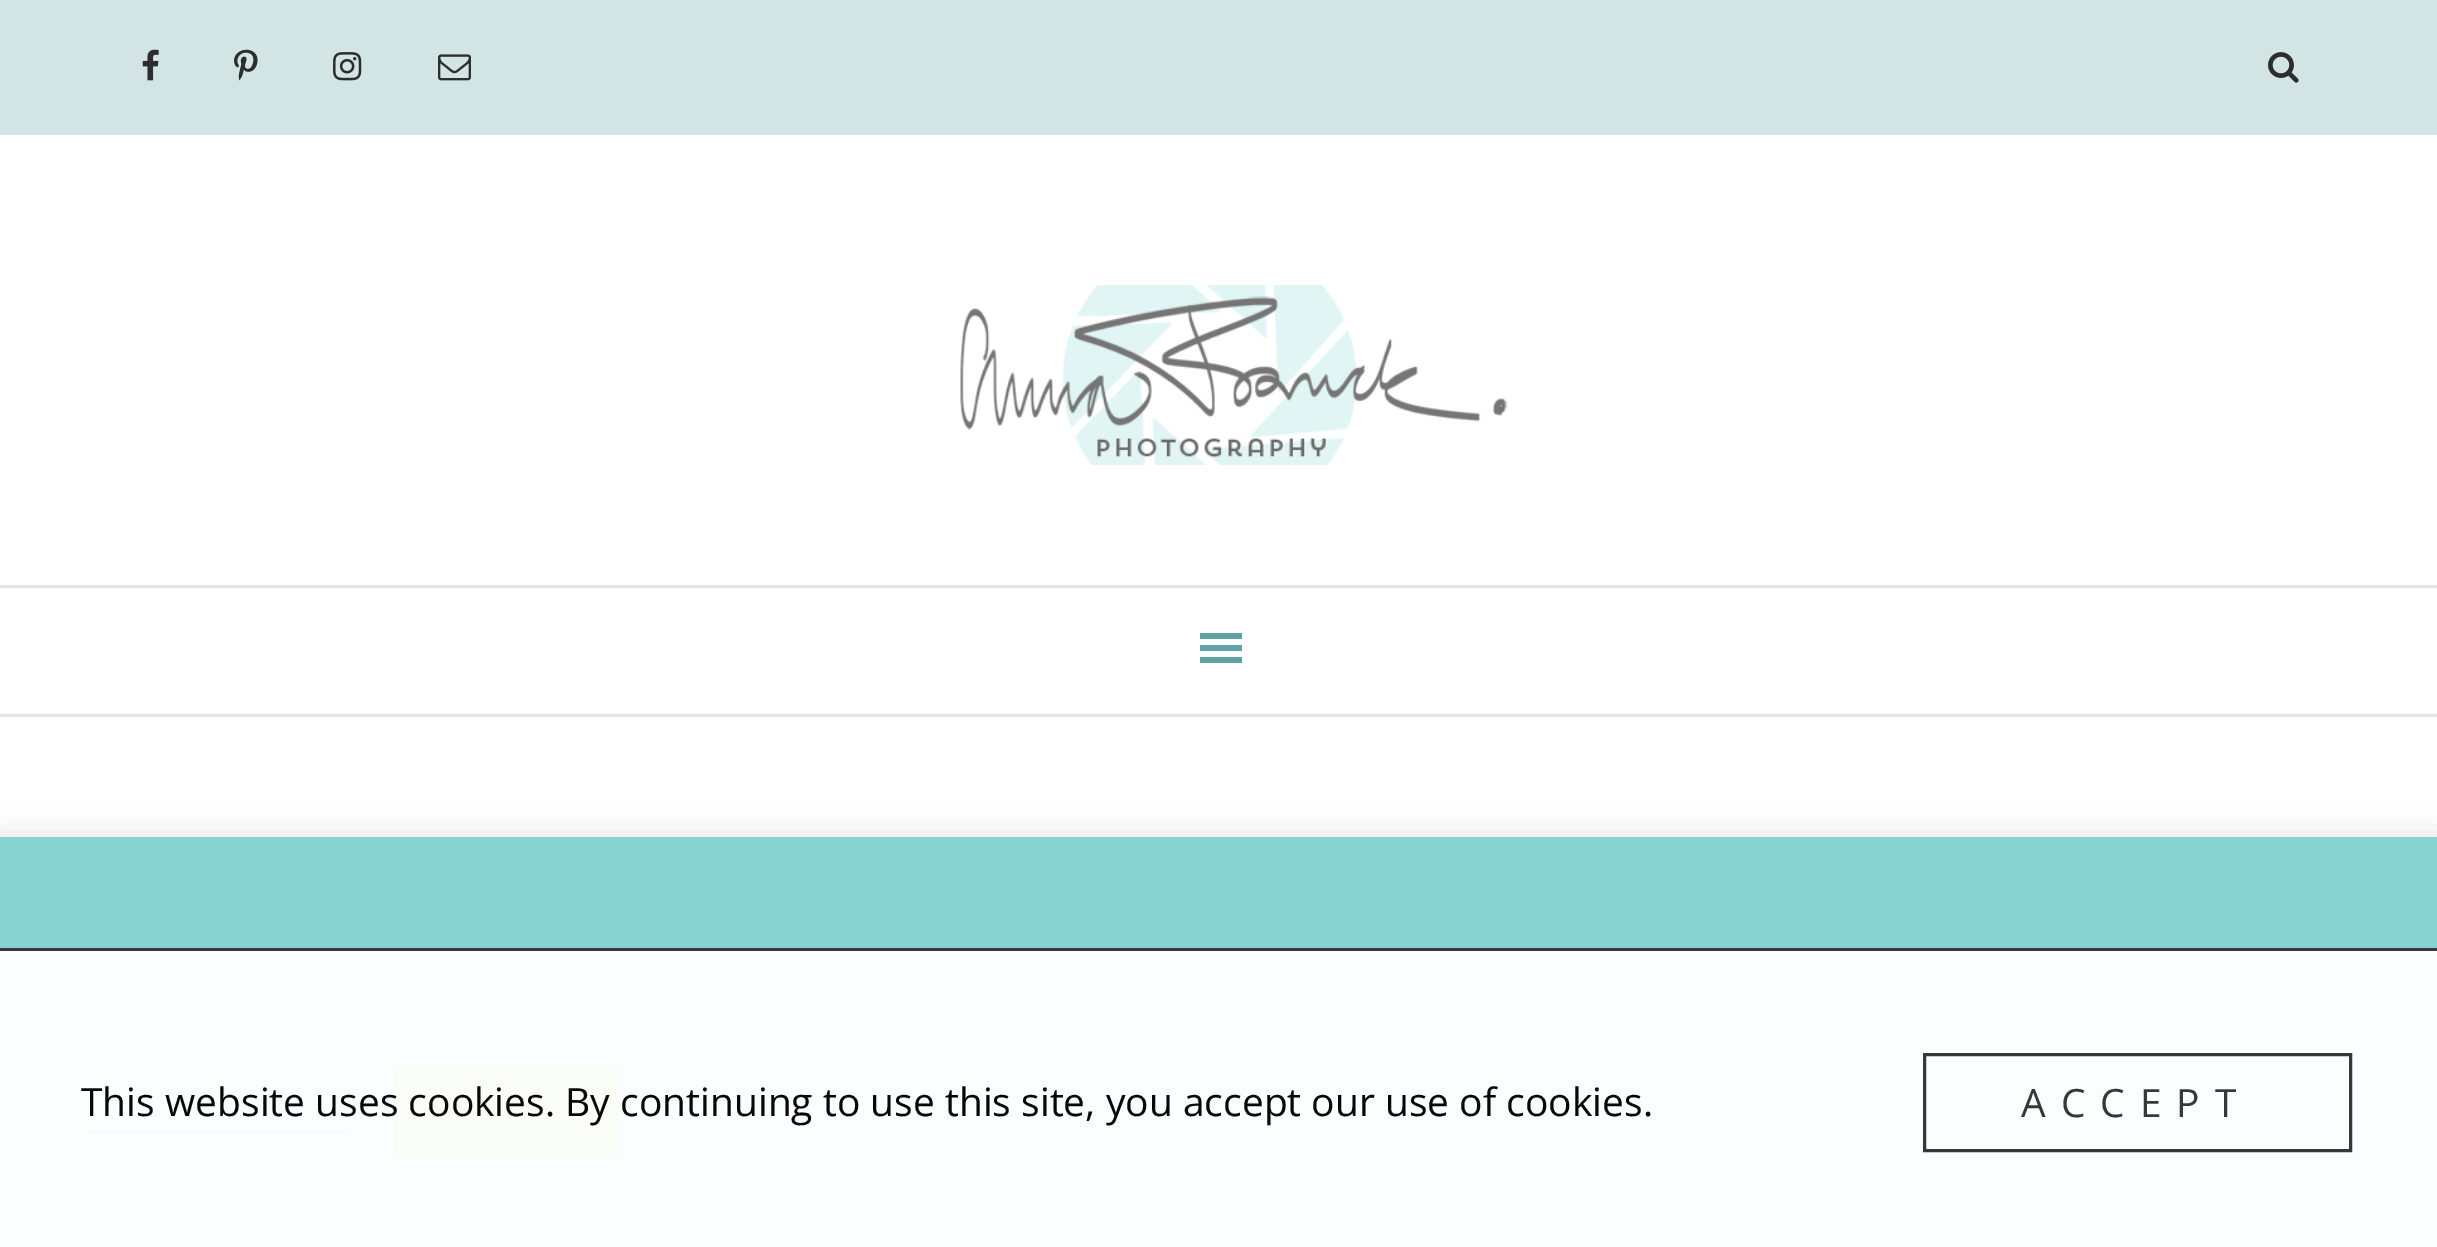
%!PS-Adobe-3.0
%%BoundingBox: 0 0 2437 1247
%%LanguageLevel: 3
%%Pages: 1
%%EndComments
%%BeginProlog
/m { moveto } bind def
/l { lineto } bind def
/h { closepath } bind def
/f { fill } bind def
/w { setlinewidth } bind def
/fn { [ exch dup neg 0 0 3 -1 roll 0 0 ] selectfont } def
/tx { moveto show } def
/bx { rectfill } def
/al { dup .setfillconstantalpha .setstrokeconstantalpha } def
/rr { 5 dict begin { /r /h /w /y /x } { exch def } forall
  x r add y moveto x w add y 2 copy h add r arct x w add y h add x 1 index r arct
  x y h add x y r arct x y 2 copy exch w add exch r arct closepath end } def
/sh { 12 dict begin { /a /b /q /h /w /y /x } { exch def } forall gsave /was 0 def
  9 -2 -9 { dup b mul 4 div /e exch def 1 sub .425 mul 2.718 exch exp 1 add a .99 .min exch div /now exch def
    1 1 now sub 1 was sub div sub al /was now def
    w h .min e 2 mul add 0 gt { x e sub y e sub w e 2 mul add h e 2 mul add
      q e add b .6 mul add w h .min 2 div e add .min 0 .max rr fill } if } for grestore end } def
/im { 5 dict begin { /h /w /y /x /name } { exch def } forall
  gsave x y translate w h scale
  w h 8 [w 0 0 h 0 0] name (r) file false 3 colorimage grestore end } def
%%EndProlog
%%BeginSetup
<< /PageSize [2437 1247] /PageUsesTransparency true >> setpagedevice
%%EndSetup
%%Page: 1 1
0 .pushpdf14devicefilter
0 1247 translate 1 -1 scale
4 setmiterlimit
1 setgray
0 0 2437 1247 bx
0.827 0.894 0.898 setrgbcolor
0 0 2437 135 bx
(image0.raw) 142 49 17 32 im
(image1.raw) 234 49 24 32 im
(image2.raw) 333 52 29 29 im
(image3.raw) 438 54 33 27 im
(image4.raw) 2268 52 31 31 im
(image5.raw) 960 285 548 180 im
0.898 setgray
0 585 2437 3 bx
0 714 2437 3 bx
0.376 0.635 0.647 setrgbcolor
1200 663 m 1242 663 l 1242 657 l 1200 657 l h 1200 633 m 1200 639 l 1242 639 l 1242 633 l h 1200 651 m 1242 651 l 1242 645 l 1200 645 l h f
0.675 0.671 0.671 setrgbcolor
0 834 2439 411 0 15 0.3 sh
0.529 0.827 0.82 setrgbcolor
0 837 2437 410 bx
0.2 setgray
90 1131 258 3 bx
0.38 0.635 0.161 setrgbcolor
393 1065 225 93 bx
0.97 al
1 setgray
0 948 2437 299 bx
0.2 setgray
0 948 2437 3 bx
/OpenSans-Regular 39 fn
1 al
0.031 setgray
(This website uses cookies. By continuing to use this site, you accept our use of cookies.) 81 1116 tx
0.212 0.22 0.22 setrgbcolor
3 w
1924.5 1054.5 426 96 rectstroke
2021 1117 m 15 0 (ACCEPT) ashow
.poppdf14devicefilter showpage
%%EOF
